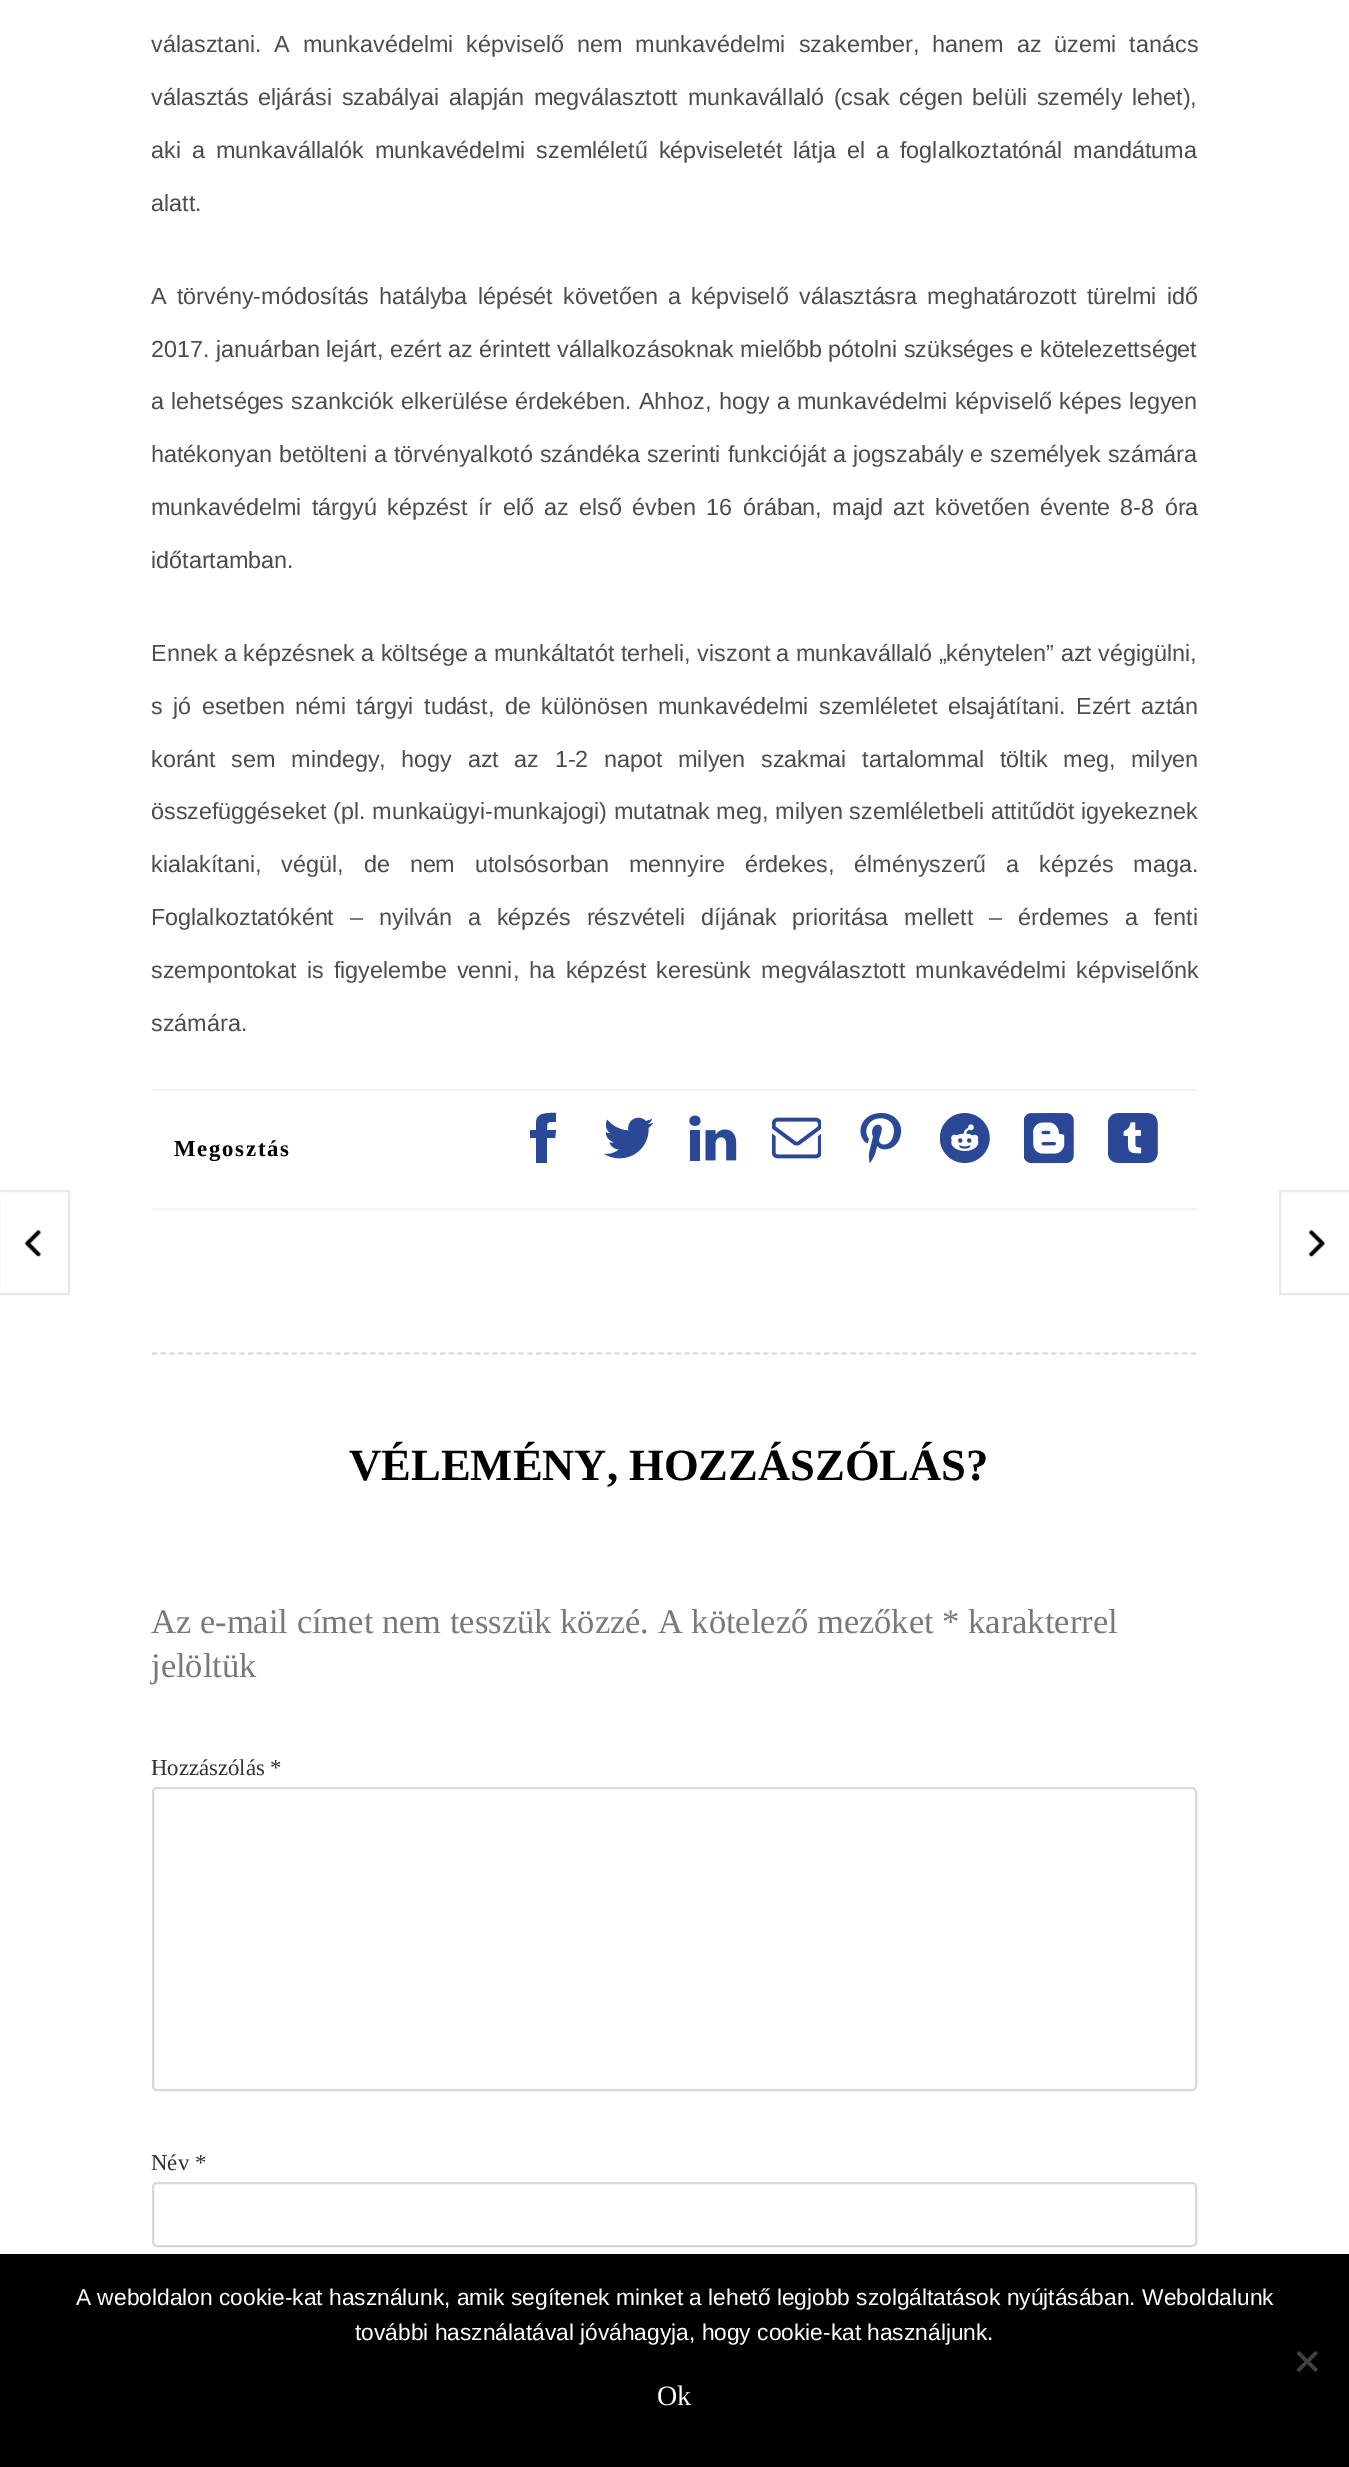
%!PS-Adobe-3.0
%%BoundingBox: 0 0 1349 2467
%%LanguageLevel: 3
%%Pages: 1
%%EndComments
%%BeginProlog
/m { moveto } bind def
/l { lineto } bind def
/c { curveto } bind def
/h { closepath } bind def
/f { fill } bind def
/S { stroke } bind def
/w { setlinewidth } bind def
/fn { [ exch dup neg 0 0 3 -1 roll 0 0 ] selectfont } def
/tx { moveto show } def
/bx { rectfill } def
/rr { 5 dict begin { /r /h /w /y /x } { exch def } forall
  x r add y moveto x w add y 2 copy h add r arct x w add y h add x 1 index r arct
  x y h add x y r arct x y 2 copy exch w add exch r arct closepath end } def
/im { 5 dict begin { /h /w /y /x /name } { exch def } forall
  gsave x y translate w h scale
  w h 8 [w 0 0 h 0 0] name (r) file false 3 colorimage grestore end } def
%%EndProlog
%%BeginSetup
<< /PageSize [1349 2467] >> setpagedevice
%%EndSetup
%%Page: 1 1
0 2467 translate 1 -1 scale
4 setmiterlimit
1 setgray
0 0 1349 2467 bx
/LiberationSans-Regular 23.35 fn
0.302 setgray
151 52 m 6.5 0 32 (választani. A munkavédelmi képviselő nem munkavédelmi szakember, hanem az üzemi tanács) widthshow
151 105 m 3.25 0 32 (választás eljárási szabályai alapján megválasztott munkavállaló \(csak cégen belüli személy lehet\),) widthshow
151 158 m 4.5 0 32 (aki a munkavállalók munkavédelmi szemléletű képviseletét látja el a foglalkoztatónál mandátuma) widthshow
(alatt.) 151 211 tx
151 304 m 3.75 0 32 (A törvény-módosítás hatályba lépését követően a képviselő választásra meghatározott türelmi idő) widthshow
(2017. januárban lejárt, ezért az érintett vállalkozásoknak mielőbb pótolni szükséges e kötelezettséget) 151 357 tx
151 409 m 0.75 0 32 (a lehetséges szankciók elkerülése érdekében. Ahhoz, hogy a munkavédelmi képviselő képes legyen) widthshow
151 462 m 0.5 0 32 (hatékonyan betölteni a törvényalkotó szándéka szerinti funkcióját a jogszabály e személyek számára) widthshow
151 515 m 3.9 0 32 (munkavédelmi tárgyú képzést ír elő az első évben 16 órában, majd azt követően évente 8-8 óra) widthshow
(időtartamban.) 151 568 tx
(Ennek a képzésnek a költsége a munkáltatót terheli, viszont a munkavállaló „kénytelen” azt végigülni,) 151 661 tx
151 714 m 4 0 32 (s jó esetben némi tárgyi tudást, de különösen munkavédelmi szemléletet elsajátítani. Ezért aztán) widthshow
151 767 m 9.1 0 32 (koránt sem mindegy, hogy azt az 1-2 napot milyen szakmai tartalommal töltik meg, milyen) widthshow
151 819 m 0.25 0 32 (összefüggéseket \(pl. munkaügyi-munkajogi\) mutatnak meg, milyen szemléletbeli attitűdöt igyekeznek) widthshow
151 872 m 13.5 0 32 (kialakítani, végül, de nem utolsósorban mennyire érdekes, élményszerű a képzés maga.) widthshow
151 925 m 9.5 0 32 (Foglalkoztatóként – nyilván a képzés részvételi díjának prioritása mellett – érdemes a fenti) widthshow
151 978 m 3.75 0 32 (szempontokat is figyelembe venni, ha képzést keresünk megválasztott munkavédelmi képviselőnk) widthshow
(számára.) 151 1031 tx
0.949 setgray
152 1089 1045 2 bx
152 1208 1045 2 bx
/LiberationSerif-Bold 22.75 fn
0 setgray
174 1156 m 1.75 0 (Megosztás) ashow
0.165 0.282 0.588 setrgbcolor
536 1123 m 536 1112 548 1113 556 1113 c 556 1122 l 547 1122 547 1121 547 1130 c 556 1130 l 555 1138 l 547 1138 l 547 1163 l 536 1163 l 536 1138 l 530 1138 l 530 1130 l 536 1130 l h f
(image0.raw) 604 1117 49 42 im
(image1.raw) 689 1115 48 46 im
(image2.raw) 772 1117 49 42 im
(image3.raw) 860 1113 42 50 im
(image4.raw) 940 1113 50 51 im
(image5.raw) 1024 1113 50 51 im
(image6.raw) 1108 1113 50 50 im
0.914 0.914 0.918 setrgbcolor
2 w
-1 1191 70 103 rectstroke
(image7.raw) 24 1230 17 27 im
1280 1191 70 103 rectstroke
(image8.raw) 1308 1230 17 27 im
0.851 setgray
1.8 w
[5.25 3.48] 0 setdash
152 1353.5 m 1197 1353.5 l S
/LiberationSerif-Bold 44.6 fn
0 setgray
(VÉLEMÉNY, HOZZÁSZÓLÁS?) 349 1480 tx
/LiberationSerif-Regular 34.5 fn
0.475 setgray
(Az e-mail címet nem tesszük közzé. A kötelező mezőket * karakterrel) 151 1633 tx
(jelöltük) 151 1677 tx
/LiberationSerif-Regular 22.75 fn
0.196 setgray
(Hozzászólás *) 151 1775 tx
0.851 setgray
2 w
[] 0 setdash
153 1788 1043 302 4 rr S
0.196 setgray
(Név *) 151 2170 tx
0.851 setgray
153 2183 1043 63 4 rr S
0 setgray
0 2254 1349 213 bx
/LiberationSans-Regular 22.75 fn
1 setgray
(A weboldalon cookie-kat használunk, amik segítenek minket a lehető legjobb szolgáltatások nyújtásában. Weboldalunk) 76 2305 tx
(további használatával jóváhagyja, hogy cookie-kat használjunk.) 355 2340 tx
0.251 setgray
1315.5 2351 m 1318 2353.5 l 1299 2372 l 1296.5 2369.5 l h f
1296.5 2353.5 m 1299 2351 l 1318 2369.5 l 1315.5 2372 l h f
/LiberationSerif-Regular 28 fn
1 setgray
(Ok) 657 2405 tx
showpage
%%EOF
